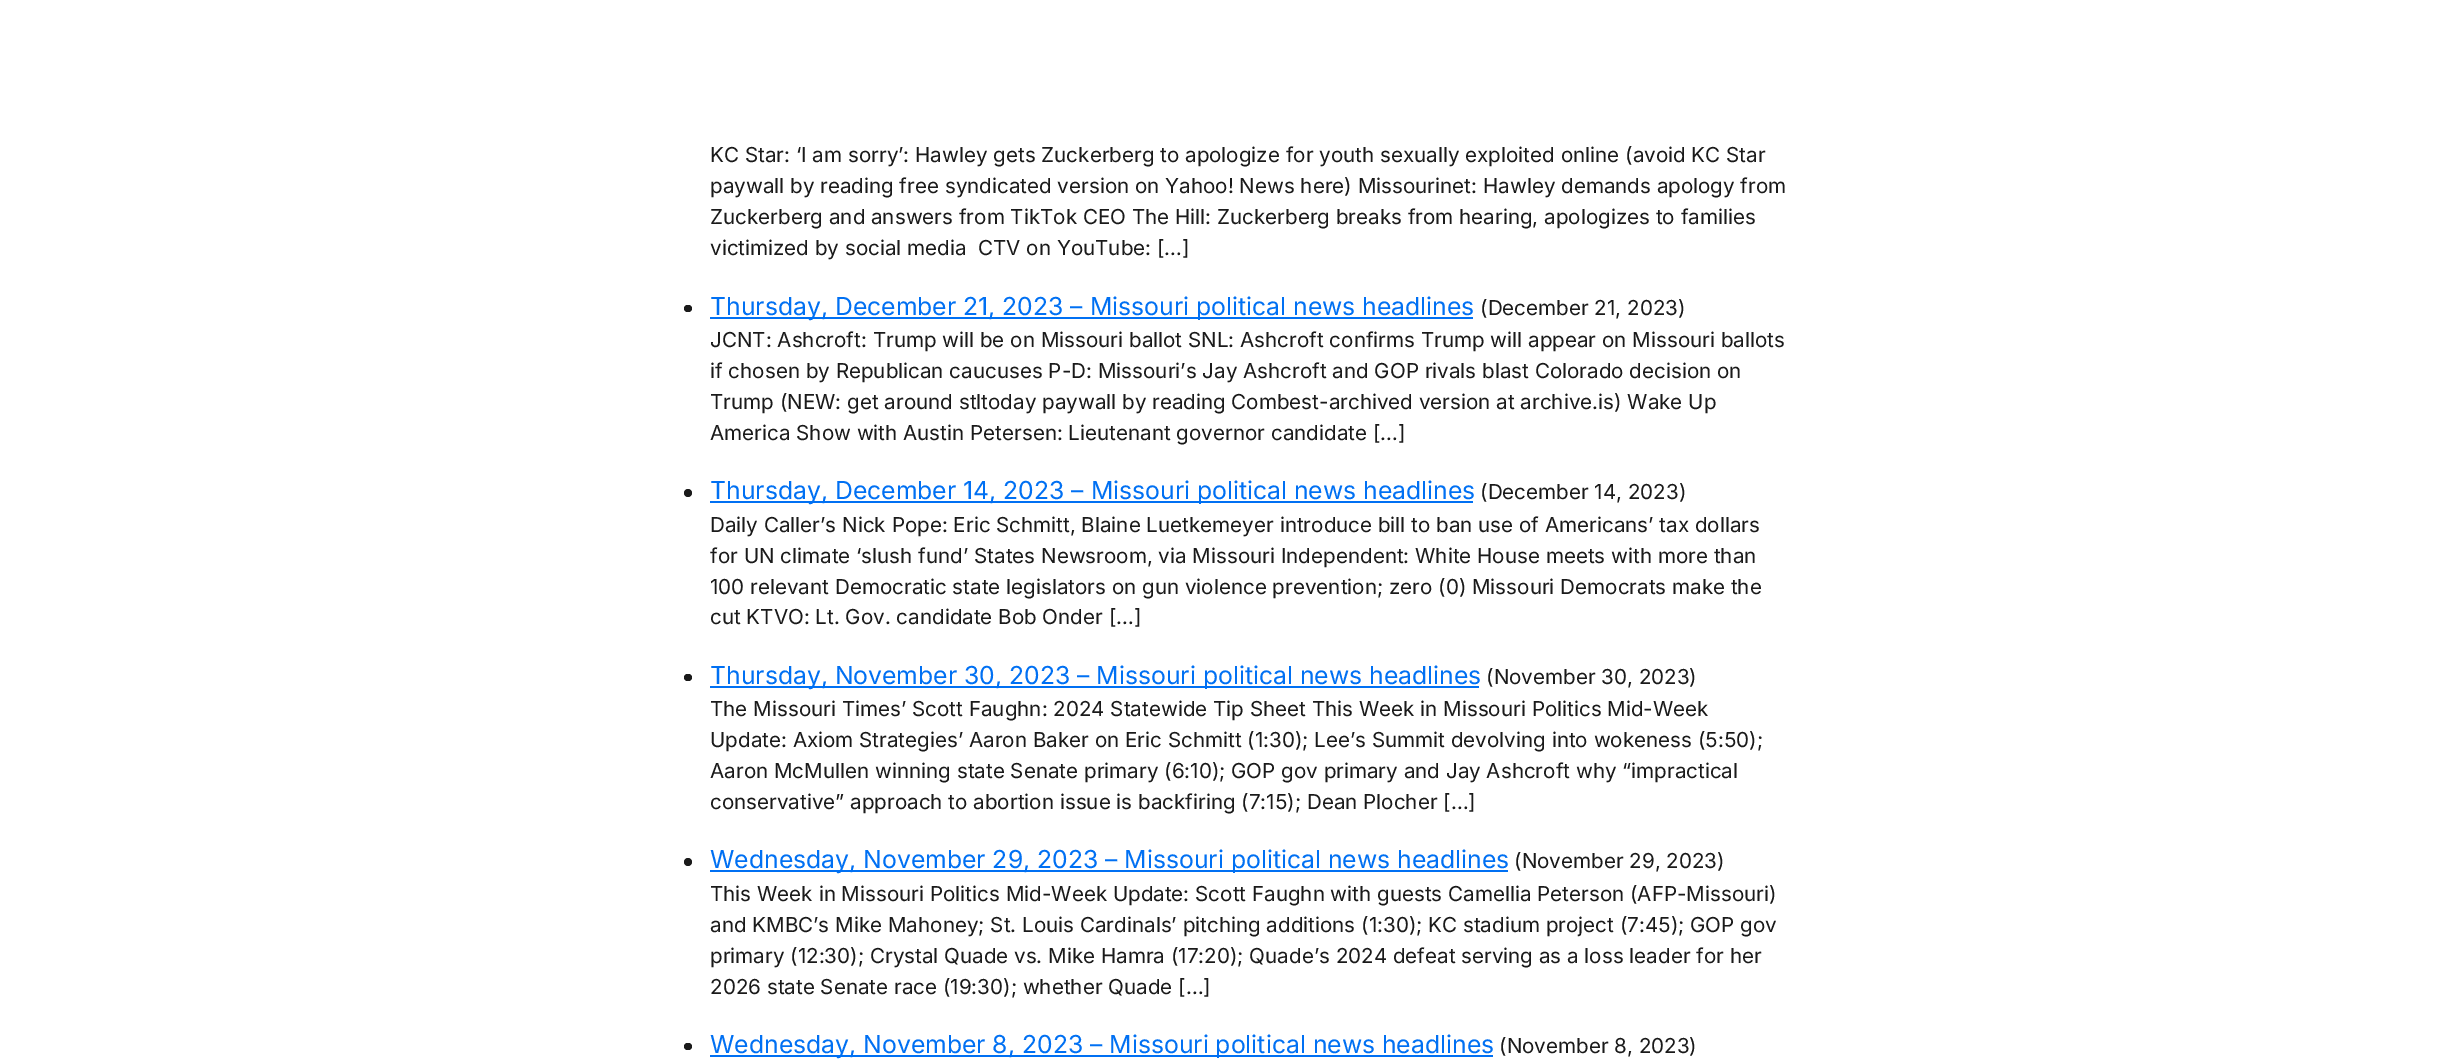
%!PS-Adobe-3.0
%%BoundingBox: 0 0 2447 1059
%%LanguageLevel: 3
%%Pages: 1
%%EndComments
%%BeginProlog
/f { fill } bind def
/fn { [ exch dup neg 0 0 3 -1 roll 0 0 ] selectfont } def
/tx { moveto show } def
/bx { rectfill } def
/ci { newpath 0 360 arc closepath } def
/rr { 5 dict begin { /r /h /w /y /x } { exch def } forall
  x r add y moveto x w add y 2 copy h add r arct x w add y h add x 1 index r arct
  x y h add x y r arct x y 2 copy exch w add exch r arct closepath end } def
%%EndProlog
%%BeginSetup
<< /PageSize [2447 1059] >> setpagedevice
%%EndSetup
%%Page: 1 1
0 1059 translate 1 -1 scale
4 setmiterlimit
1 setgray
0 0 2447 1059 bx
/Inter-Regular 20.6 fn
0.102 setgray
(KC Star: ‘I am sorry’: Hawley gets Zuckerberg to apologize for youth sexually exploited online \(avoid KC Star) 710 162 tx
(paywall by reading free syndicated version on Yahoo! News here\) Missourinet: Hawley demands apology from) 710 193 tx
(Zuckerberg and answers from TikTok CEO The Hill: Zuckerberg breaks from hearing, apologizes to families) 710 224 tx
(victimized by social media  CTV on YouTube: […]) 710 255 tx
684 305 8 7 3.5 rr f
0 0.439 0.953 setrgbcolor
710 317 763 2 bx
/Inter-Regular 24.75 fn
(Thursday, December 21, 2023 – Missouri political news headlines) 710 315 tx
/Inter-Regular 20.6 fn
0.102 setgray
(\(December 21, 2023\)) 1480 315 tx
(JCNT: Ashcroft: Trump will be on Missouri ballot SNL: Ashcroft confirms Trump will appear on Missouri ballots) 710 347 tx
(if chosen by Republican caucuses P-D: Missouri’s Jay Ashcroft and GOP rivals blast Colorado decision on) 710 378 tx
(Trump \(NEW: get around stltoday paywall by reading Combest-archived version at archive.is\) Wake Up) 710 409 tx
(America Show with Austin Petersen: Lieutenant governor candidate […]) 710 440 tx
688 493 4 ci f
0 0.439 0.953 setrgbcolor
710 501 763 2 bx
/Inter-Regular 24.75 fn
(Thursday, December 14, 2023 – Missouri political news headlines) 710 499 tx
/Inter-Regular 20.6 fn
0.102 setgray
(\(December 14, 2023\)) 1480 499 tx
(Daily Caller’s Nick Pope: Eric Schmitt, Blaine Luetkemeyer introduce bill to ban use of Americans’ tax dollars) 710 532 tx
(for UN climate ‘slush fund’ States Newsroom, via Missouri Independent: White House meets with more than) 710 563 tx
(100 relevant Democratic state legislators on gun violence prevention; zero \(0\) Missouri Democrats make the) 710 594 tx
(cut KTVO: Lt. Gov. candidate Bob Onder […]) 710 624 tx
684 674 8 7 3.5 rr f
0 0.439 0.953 setrgbcolor
710 686 769 2 bx
/Inter-Regular 24.75 fn
(Thursday, November 30, 2023 – Missouri political news headlines) 710 684 tx
/Inter-Regular 20.6 fn
0.102 setgray
(\(November 30, 2023\)) 1486 684 tx
(The Missouri Times’ Scott Faughn: 2024 Statewide Tip Sheet This Week in Missouri Politics Mid-Week) 710 716 tx
(Update: Axiom Strategies’ Aaron Baker on Eric Schmitt \(1:30\); Lee’s Summit devolving into wokeness \(5:50\);) 710 747 tx
(Aaron McMullen winning state Senate primary \(6:10\); GOP gov primary and Jay Ashcroft why “impractical) 710 778 tx
(conservative” approach to abortion issue is backfiring \(7:15\); Dean Plocher […]) 710 809 tx
688 862 4 ci f
0 0.439 0.953 setrgbcolor
710 870 798 2 bx
/Inter-Regular 24.75 fn
(Wednesday, November 29, 2023 – Missouri political news headlines) 710 868 tx
/Inter-Regular 20.6 fn
0.102 setgray
(\(November 29, 2023\)) 1514 868 tx
(This Week in Missouri Politics Mid-Week Update: Scott Faughn with guests Camellia Peterson \(AFP-Missouri\)) 710 901 tx
(and KMBC’s Mike Mahoney; St. Louis Cardinals’ pitching additions \(1:30\); KC stadium project \(7:45\); GOP gov) 710 932 tx
(primary \(12:30\); Crystal Quade vs. Mike Hamra \(17:20\); Quade’s 2024 defeat serving as a loss leader for her) 710 963 tx
(2026 state Senate race \(19:30\); whether Quade […]) 710 994 tx
684 1043 8 7 3.5 rr f
0 0.439 0.953 setrgbcolor
710 1055 783 2 bx
/Inter-Regular 24.75 fn
(Wednesday, November 8, 2023 – Missouri political news headlines) 710 1053 tx
/Inter-Regular 20.6 fn
0.102 setgray
(\(November 8, 2023\)) 1499 1053 tx
showpage
%%EOF
